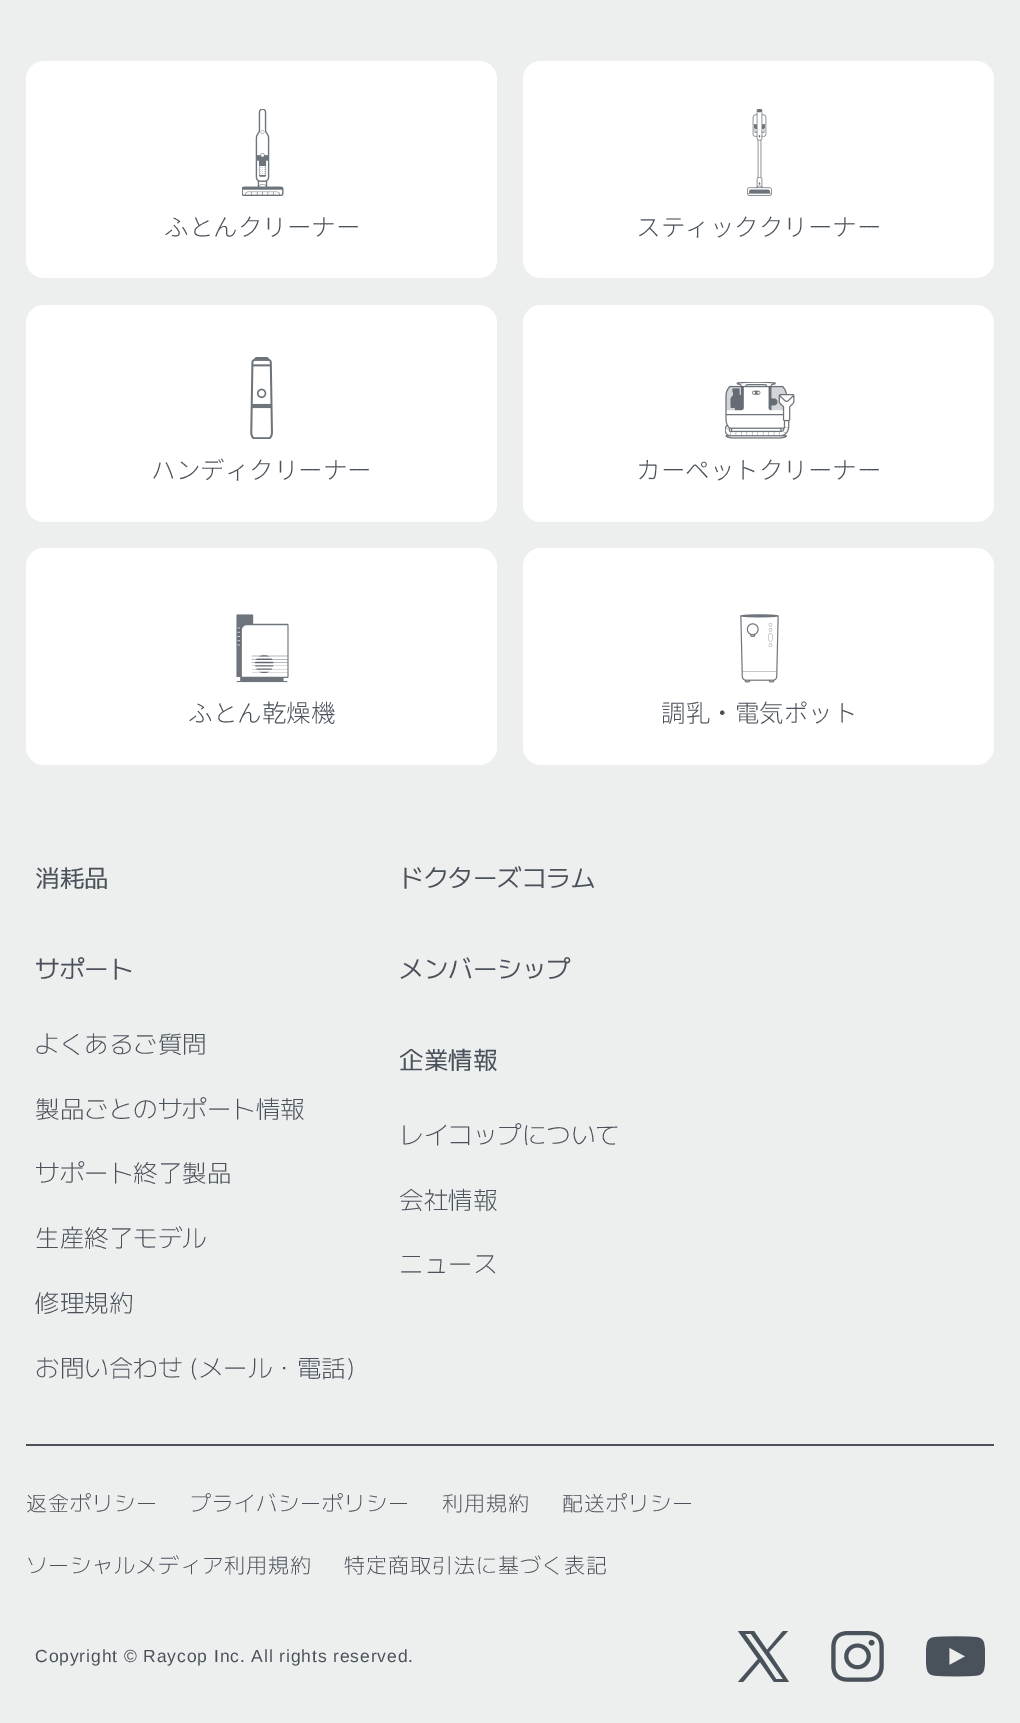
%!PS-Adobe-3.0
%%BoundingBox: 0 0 1020 1723
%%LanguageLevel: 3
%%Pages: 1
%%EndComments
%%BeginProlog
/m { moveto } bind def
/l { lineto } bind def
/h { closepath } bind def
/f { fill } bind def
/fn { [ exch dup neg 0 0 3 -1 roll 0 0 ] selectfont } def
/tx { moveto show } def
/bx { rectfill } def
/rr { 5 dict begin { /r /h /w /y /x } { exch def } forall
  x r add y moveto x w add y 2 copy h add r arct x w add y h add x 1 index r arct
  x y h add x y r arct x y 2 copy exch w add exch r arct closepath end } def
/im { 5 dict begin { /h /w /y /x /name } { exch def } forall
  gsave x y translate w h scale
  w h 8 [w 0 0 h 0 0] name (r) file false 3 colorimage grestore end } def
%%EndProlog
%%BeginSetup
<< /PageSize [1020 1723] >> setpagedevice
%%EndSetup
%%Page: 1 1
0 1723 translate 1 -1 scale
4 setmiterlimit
0.929 0.933 0.933 setrgbcolor
0 0 1020 1723 bx
1 setgray
26 61 471 217 18 rr f
(image0.raw) 242 109 42 87 im
/NotoSansJP-Light 24.5 fn
0.286 0.318 0.353 setrgbcolor
(ふとんクリーナー) 164 236 tx
1 setgray
523 61 471 217 18 rr f
(image1.raw) 747 109 25 87 im
0.286 0.318 0.353 setrgbcolor
(スティッククリーナー) 636 236 tx
1 setgray
26 305 471 217 18 rr f
(image2.raw) 250 357 23 82 im
0.286 0.318 0.353 setrgbcolor
(ハンディクリーナー) 151 479 tx
1 setgray
523 305 471 217 18 rr f
(image3.raw) 725 382 70 57 im
0.286 0.318 0.353 setrgbcolor
(カーペットクリーナー) 636 479 tx
1 setgray
26 548 471 217 18 rr f
(image4.raw) 236 614 53 69 im
0.286 0.318 0.353 setrgbcolor
(ふとん乾燥機) 188 722 tx
1 setgray
523 548 471 217 18 rr f
(image5.raw) 740 614 39 69 im
0.286 0.318 0.353 setrgbcolor
(調乳・電気ポット) 661 722 tx
/MPLUS1-Regular 24.5 fn
(消耗品) 35 887 tx
(サポート) 35 978 tx
/MPLUS1-Light 24.5 fn
(よくあるご質問) 35 1053 tx
(製品ごとのサポート情報) 35 1118 tx
(サポート終了製品) 35 1182 tx
(生産終了モデル) 35 1247 tx
(修理規約) 35 1312 tx
(お問い合わせ \(メール・電話\)) 35 1377 tx
/MPLUS1-Regular 24.5 fn
(ドクターズコラム) 399 887 tx
(メンバーシップ) 399 978 tx
(企業情報) 399 1069 tx
/MPLUS1-Light 24.5 fn
(レイコップについて) 399 1144 tx
(会社情報) 399 1209 tx
(ニュース) 399 1273 tx
26 1444 968 2 bx
/MPLUS1-Light 21 fn
26 1511 m 1 0 (返金ポリシー) ashow
190 1511 m 1 0 (プライバシーポリシー) ashow
442 1511 m 1 0 (利用規約) ashow
562 1511 m 1 0 (配送ポリシー) ashow
26 1573 m 1 0 (ソーシャルメディア利用規約) ashow
344 1573 m 1 0 (特定商取引法に基づく表記) ashow
/LiberationSans-Regular 17.5 fn
35 1662 m 0.9 0 (Copyright © Raycop Inc. All rights reserved.) ashow
769 1652 m 788 1631 l 783 1631 l 767 1650 l 754 1631 l 738 1631 l 758 1659 l 738 1682 l 743 1682 l 760 1662 l 774 1682 l 789 1682 l h 763 1659 m 745 1634 l 751 1634 l 783 1679 l 776 1679 l h f
(image6.raw) 831 1631 53 51 im
(image7.raw) 926 1636 59 41 im
showpage
%%EOF
